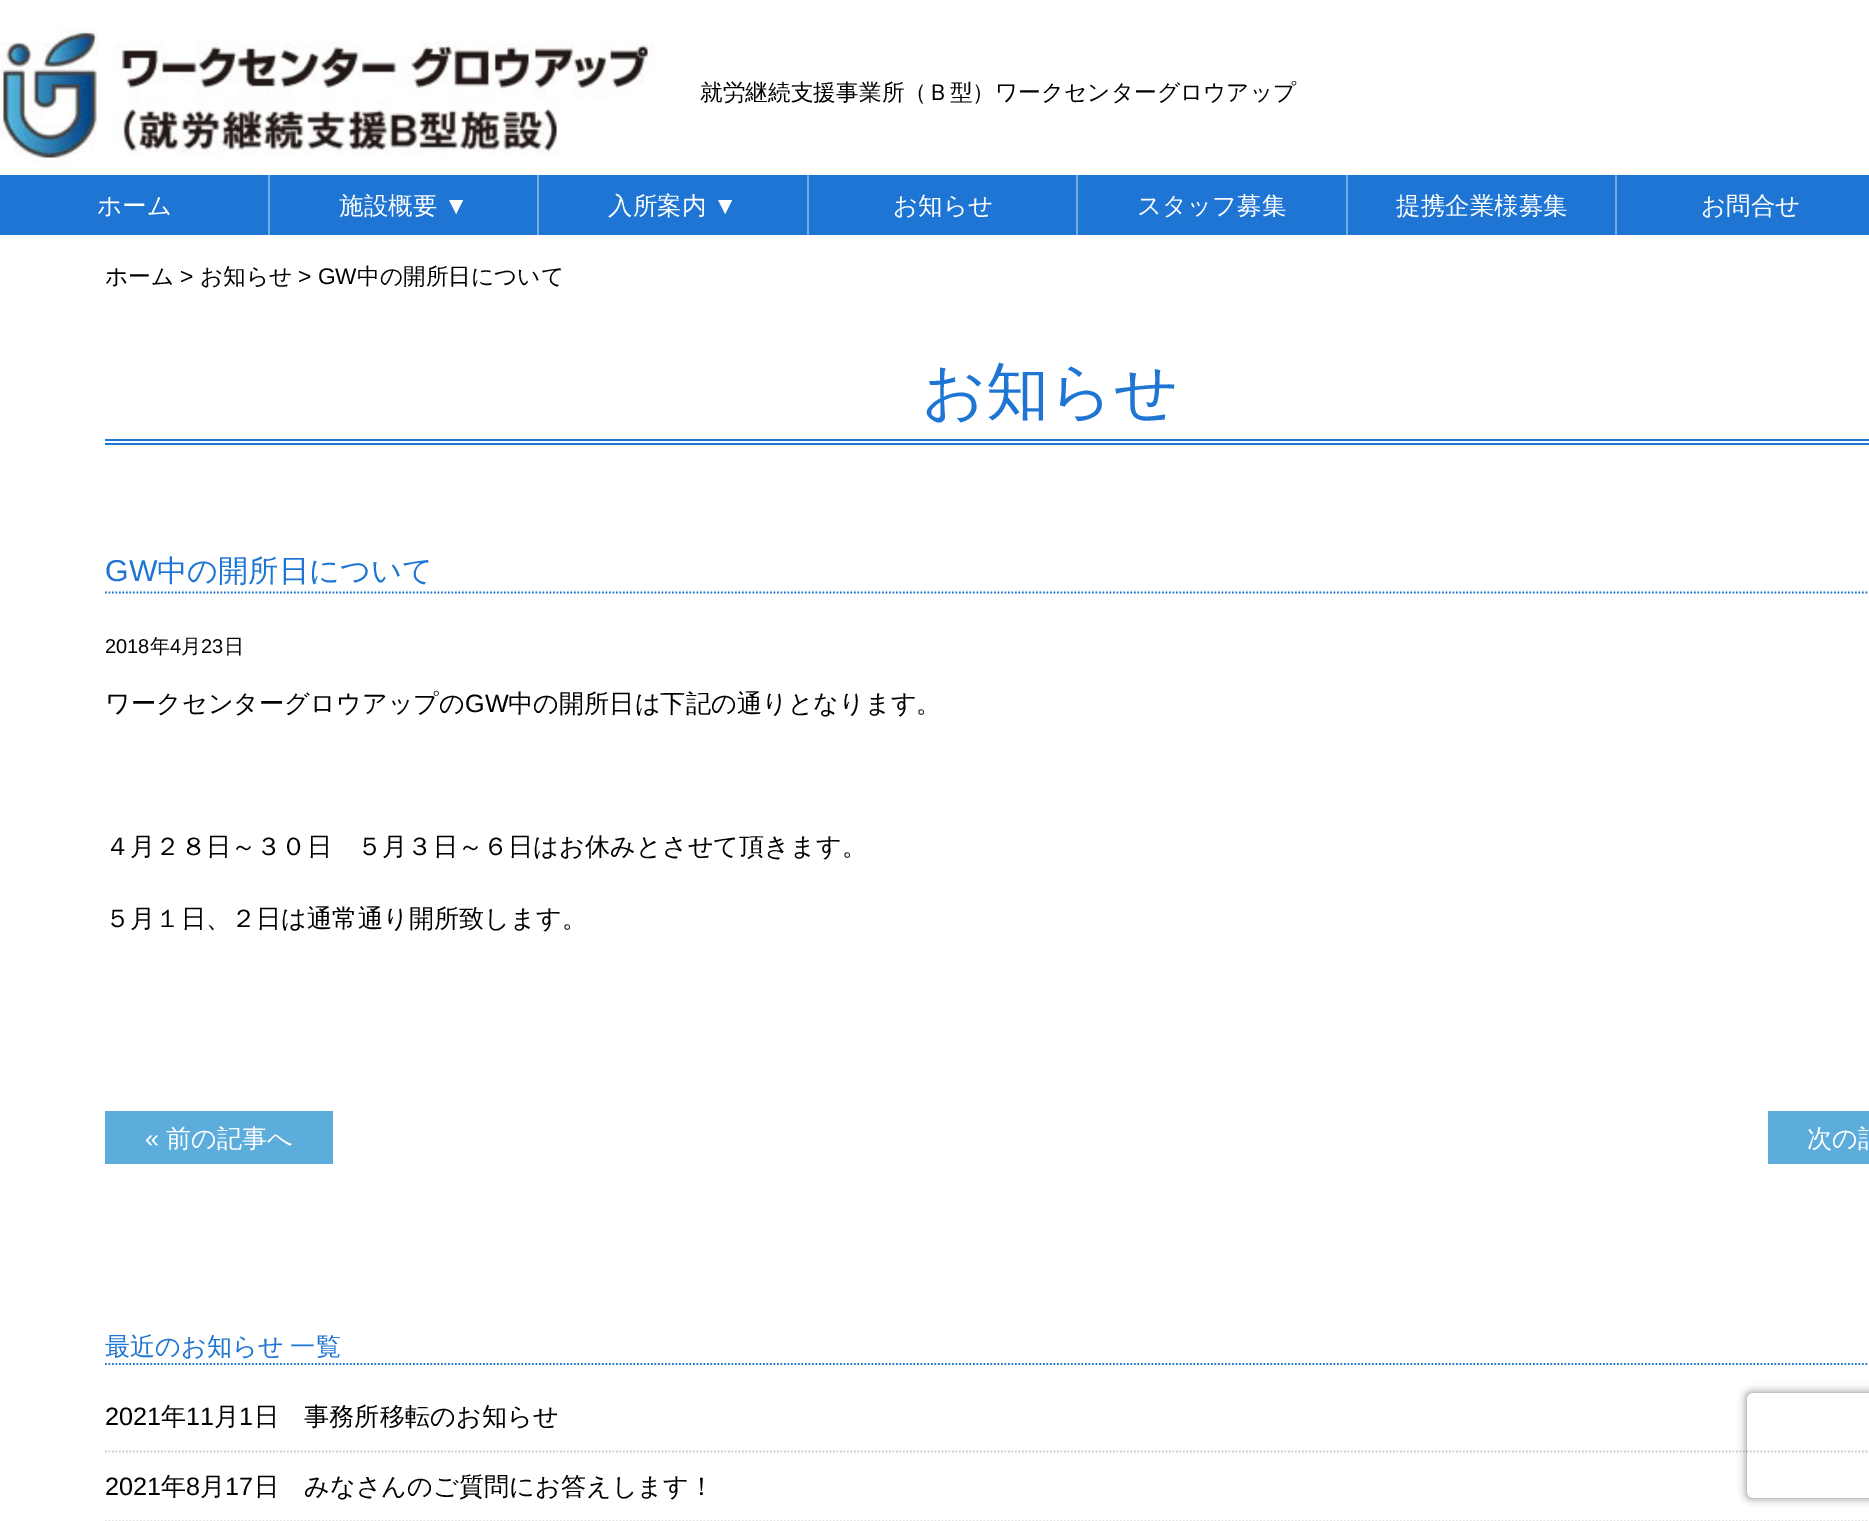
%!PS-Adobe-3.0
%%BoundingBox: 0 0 1869 1521
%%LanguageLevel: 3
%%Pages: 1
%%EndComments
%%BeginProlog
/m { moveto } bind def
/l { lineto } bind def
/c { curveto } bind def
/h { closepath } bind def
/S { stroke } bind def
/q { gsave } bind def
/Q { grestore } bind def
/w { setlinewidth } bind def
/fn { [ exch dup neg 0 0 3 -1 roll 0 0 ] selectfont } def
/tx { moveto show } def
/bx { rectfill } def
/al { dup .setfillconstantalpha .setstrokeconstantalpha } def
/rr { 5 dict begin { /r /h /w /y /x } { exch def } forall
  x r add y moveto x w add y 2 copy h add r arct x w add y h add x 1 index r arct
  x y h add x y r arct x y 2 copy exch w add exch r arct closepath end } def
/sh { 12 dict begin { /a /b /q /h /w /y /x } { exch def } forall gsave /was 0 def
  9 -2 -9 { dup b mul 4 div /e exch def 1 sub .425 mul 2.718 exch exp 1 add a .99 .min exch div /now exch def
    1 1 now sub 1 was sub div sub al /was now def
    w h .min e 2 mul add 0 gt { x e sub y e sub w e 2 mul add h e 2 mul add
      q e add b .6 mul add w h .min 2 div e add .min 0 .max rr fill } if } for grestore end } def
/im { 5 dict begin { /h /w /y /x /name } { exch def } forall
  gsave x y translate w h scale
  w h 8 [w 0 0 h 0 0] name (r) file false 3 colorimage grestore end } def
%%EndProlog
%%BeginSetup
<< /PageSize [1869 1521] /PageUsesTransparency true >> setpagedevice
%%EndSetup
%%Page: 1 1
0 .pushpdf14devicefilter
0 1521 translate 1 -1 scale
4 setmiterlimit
1 setgray
0 0 1869 1521 bx
(image0.raw) 0 28 658 136 im
/WenQuanYiZenHei-Medium 22.7 fn
0 setgray
(就労継続支援事業所（Ｂ型）ワークセンターグロウアップ) 700 100 tx
0.122 0.459 0.827 setrgbcolor
0 175 1869 60 bx
/WenQuanYiZenHei-Medium 24.5 fn
1 setgray
(ホーム) 97 214 tx
0.451 0.663 0.894 setrgbcolor
268 175 2 60 bx
1 setgray
(施設概要) 339 214 tx
/LiberationSans-Regular 24.5 fn
(▼) 444 214 tx
0.451 0.663 0.894 setrgbcolor
537 175 2 60 bx
/WenQuanYiZenHei-Medium 24.5 fn
1 setgray
(入所案内) 608 214 tx
/LiberationSans-Regular 24.5 fn
(▼) 713 214 tx
0.451 0.663 0.894 setrgbcolor
807 175 2 60 bx
/WenQuanYiZenHei-Medium 24.5 fn
1 setgray
(お知らせ) 893 214 tx
0.451 0.663 0.894 setrgbcolor
1076 175 2 60 bx
1 setgray
(スタッフ募集) 1137 214 tx
0.451 0.663 0.894 setrgbcolor
1346 175 2 60 bx
1 setgray
(提携企業様募集) 1396 214 tx
0.451 0.663 0.894 setrgbcolor
1615 175 2 60 bx
1 setgray
(お問合せ) 1701 214 tx
/WenQuanYiZenHei-Medium 22.7 fn
0 setgray
(ホーム) 105 284 tx
/LiberationSans-Regular 22.7 fn
(>) 180 284 tx
/WenQuanYiZenHei-Medium 22.7 fn
(お知らせ) 200 284 tx
/LiberationSans-Regular 22.7 fn
(> GW) 298 284 tx
/WenQuanYiZenHei-Medium 22.7 fn
(中の開所日について) 357 284 tx
0.122 0.459 0.827 setrgbcolor
105 439 1764 2 bx
105 443 1764 2 bx
/WenQuanYiZenHei-Medium 63 fn
(お知らせ) 922 413 tx
1.8 w
[1.75 1.75] 0 setdash
105 592.5 m 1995 592.5 l S
/LiberationSans-Regular 30.25 fn
(GW) 105 581 tx
/WenQuanYiZenHei-Medium 30.25 fn
(中の開所日について) 157 581 tx
/LiberationSans-Regular 20 fn
0 setgray
(2018) 105 653 tx
/WenQuanYiZenHei-Medium 20 fn
(年) 150 653 tx
/LiberationSans-Regular 20 fn
(4) 170 653 tx
/WenQuanYiZenHei-Medium 20 fn
(月) 181 653 tx
/LiberationSans-Regular 20 fn
(23) 201 653 tx
/WenQuanYiZenHei-Medium 20 fn
(日) 224 653 tx
/WenQuanYiZenHei-Medium 25.2 fn
(ワークセンターグロウアップの) 105 712 tx
/LiberationSans-Regular 25.2 fn
(GW) 465 712 tx
/WenQuanYiZenHei-Medium 25.2 fn
(中の開所日は下記の通りとなります。) 508 712 tx
(４月２８日～３０日　５月３日～６日はお休みとさせて頂きます。) 105 855 tx
(５月１日、２日は通常通り開所致します。) 105 927 tx
0.361 0.678 0.863 setrgbcolor
105 1111 228 53 bx
/LiberationSans-Regular 25.2 fn
1 setgray
(«) 145 1147 tx
/WenQuanYiZenHei-Medium 25.2 fn
(前の記事へ) 166 1147 tx
0.361 0.678 0.863 setrgbcolor
1768 1111 101 53 bx
1 setgray
(次の記) 1807 1147 tx
0.122 0.459 0.827 setrgbcolor
105 1364 m 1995 1364 l S
105 1355 m -1 0 32 (最近のお知らせ 一覧) widthshow
0.8 setgray
105 1451.5 m 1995 1451.5 l S
/LiberationSans-Regular 25.2 fn
0 setgray
(2021) 105 1425 tx
/WenQuanYiZenHei-Medium 25.2 fn
(年) 161 1425 tx
/LiberationSans-Regular 25.2 fn
(11) 186 1425 tx
/WenQuanYiZenHei-Medium 25.2 fn
(月) 214 1425 tx
/LiberationSans-Regular 25.2 fn
(1) 239 1425 tx
/WenQuanYiZenHei-Medium 25.2 fn
(日) 254 1425 tx
(事務所移転のお知らせ) 304 1425 tx
0.8 setgray
105 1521.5 m 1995 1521.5 l S
/LiberationSans-Regular 25.2 fn
0 setgray
(2021) 105 1495 tx
/WenQuanYiZenHei-Medium 25.2 fn
(年) 161 1495 tx
/LiberationSans-Regular 25.2 fn
(8) 186 1495 tx
/WenQuanYiZenHei-Medium 25.2 fn
(月) 200 1495 tx
/LiberationSans-Regular 25.2 fn
(17) 225 1495 tx
/WenQuanYiZenHei-Medium 25.2 fn
(日) 254 1495 tx
(みなさんのご質問にお答えします！) 304 1495 tx
q
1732 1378 m 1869 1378 l 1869 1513 l 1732 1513 l h 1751 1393 m 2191 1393 l 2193 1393 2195 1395 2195 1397 c 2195 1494 l 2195 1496 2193 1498 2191 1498 c 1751 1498 l 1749 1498 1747 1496 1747 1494 c 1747 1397 l 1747 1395 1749 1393 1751 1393 c h eoclip newpath
0.502 setgray
1747 1393 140 105 4 4.5 1 sh
Q
.poppdf14devicefilter showpage
%%EOF
